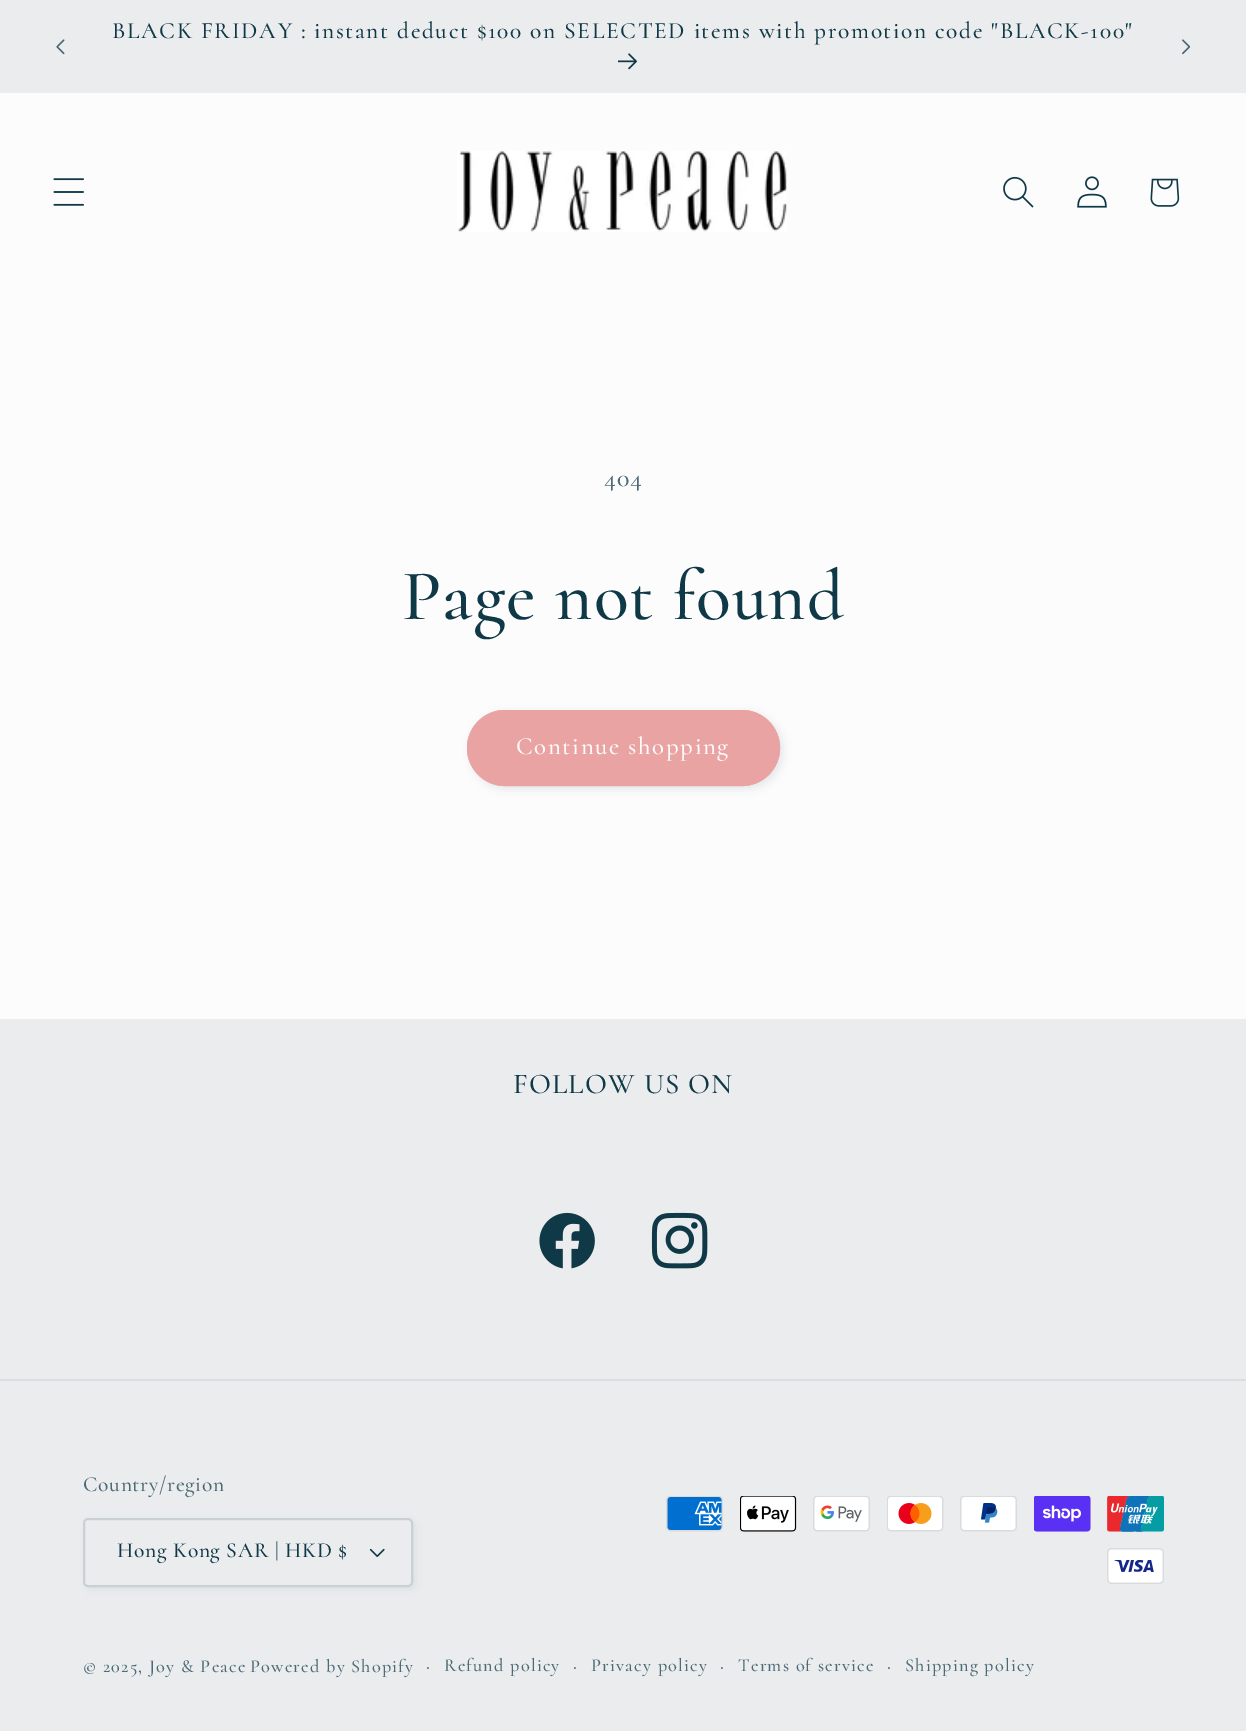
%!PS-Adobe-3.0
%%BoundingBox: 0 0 1246 1731
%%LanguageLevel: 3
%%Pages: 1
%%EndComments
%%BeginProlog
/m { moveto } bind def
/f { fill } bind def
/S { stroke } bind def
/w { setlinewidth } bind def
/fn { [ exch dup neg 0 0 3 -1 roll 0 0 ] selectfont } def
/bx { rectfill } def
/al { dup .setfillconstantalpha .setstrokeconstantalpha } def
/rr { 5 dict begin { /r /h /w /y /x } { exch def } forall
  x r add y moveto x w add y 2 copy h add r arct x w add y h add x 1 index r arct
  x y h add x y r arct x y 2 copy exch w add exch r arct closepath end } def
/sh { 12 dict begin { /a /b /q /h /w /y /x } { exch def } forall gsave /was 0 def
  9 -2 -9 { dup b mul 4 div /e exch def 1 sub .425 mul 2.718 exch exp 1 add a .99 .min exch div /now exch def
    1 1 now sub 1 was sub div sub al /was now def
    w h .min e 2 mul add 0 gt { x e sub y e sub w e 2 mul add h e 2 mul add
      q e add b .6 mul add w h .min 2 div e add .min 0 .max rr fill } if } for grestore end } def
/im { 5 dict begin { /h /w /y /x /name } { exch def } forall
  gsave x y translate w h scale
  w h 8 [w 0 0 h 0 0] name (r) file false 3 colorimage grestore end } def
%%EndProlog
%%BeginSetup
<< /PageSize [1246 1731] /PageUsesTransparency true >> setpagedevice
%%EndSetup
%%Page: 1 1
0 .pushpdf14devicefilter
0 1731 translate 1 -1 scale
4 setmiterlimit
0.988 setgray
0 0 1246 1731 bx
0.922 0.925 0.929 setrgbcolor
0 0 1246 93 bx
/Cormorant-Medium 23.4 fn
0.063 0.224 0.282 setrgbcolor
112 38 m 1.65 0 (BLACK FRIDAY : instant deduct $100 on SELECTED items with promotion code "BLACK-100") ashow
(image0.raw) 618 53 19 17 im
(image1.raw) 56 39 9 16 im
(image2.raw) 1182 39 9 16 im
(image3.raw) 53 178 31 28 im
(image4.raw) 457 151 330 81 im
(image5.raw) 1003 176 31 32 im
(image6.raw) 1077 176 30 32 im
(image7.raw) 1150 178 30 29 im
/Cormorant-Medium 26 fn
0.294 0.416 0.459 setrgbcolor
604 486 m 1 0 (404) ashow
/Cormorant-Medium 72 fn
0.063 0.224 0.282 setrgbcolor
402 619 m 1.1 0 (Page not found) ashow
470 713 313 76 38 4 0.1 sh
0.918 0.639 0.639 setrgbcolor
467 710 313 76 38 rr f
2 w
468 711 311 74 37 rr S
/Cormorant-Medium 24.75 fn
0.988 setgray
516 754 m 1.65 0 (Continue shopping) ashow
0.922 0.925 0.929 setrgbcolor
0 1019 1246 712 bx
/Cormorant-Medium 28.75 fn
0.063 0.224 0.282 setrgbcolor
513 1093 m 1.1 0 (FOLLOW US ON) ashow
(image8.raw) 539 1212 56 57 im
(image9.raw) 651 1212 57 57 im
0.851 0.871 0.878 setrgbcolor
0 1379 1246 2 bx
/Cormorant-Medium 21.5 fn
0.294 0.416 0.459 setrgbcolor
83 1491 m 0.7 0 (Country/region) ashow
0.063 0.224 0.282 setrgbcolor
86 1521 330 69 5 4 0.05 sh
0.922 0.925 0.929 setrgbcolor
83 1518 330 69 5 rr f
(image10.raw) 369 1548 16 9 im
0.15 al
0.063 0.224 0.282 setrgbcolor
84 1519 328 67 4 rr S
1 al
117 1557 m 0.7 0 (Hong Kong SAR | HKD $) ashow
(image11.raw) 666 1496 57 36 im
(image12.raw) 740 1496 57 36 im
(image13.raw) 813 1496 57 36 im
(image14.raw) 887 1496 57 36 im
(image15.raw) 960 1496 57 36 im
(image16.raw) 1034 1496 57 36 im
(image17.raw) 1107 1496 57 36 im
(image18.raw) 1107 1548 57 36 im
/Cormorant-Medium 18.25 fn
0.294 0.416 0.459 setrgbcolor
83 1672 m 1.2 0 (© 2025, Joy & Peace) ashow
250 1672 m 1.2 0 (Powered by Shopify) ashow
/Cormorant-Medium 20 fn
426 1672 m 1.2 0 (·) ashow
/Cormorant-Medium 18.25 fn
444 1671 m 1.2 0 (Refund policy) ashow
/Cormorant-Medium 20 fn
573 1672 m 1.2 0 (·) ashow
/Cormorant-Medium 18.25 fn
591 1671 m 1.2 0 (Privacy policy) ashow
/Cormorant-Medium 20 fn
720 1672 m 1.2 0 (·) ashow
/Cormorant-Medium 18.25 fn
738 1671 m 1.2 0 (Terms of service) ashow
/Cormorant-Medium 20 fn
887 1672 m 1.2 0 (·) ashow
/Cormorant-Medium 18.25 fn
905 1671 m 1.2 0 (Shipping policy) ashow
.poppdf14devicefilter showpage
%%EOF
